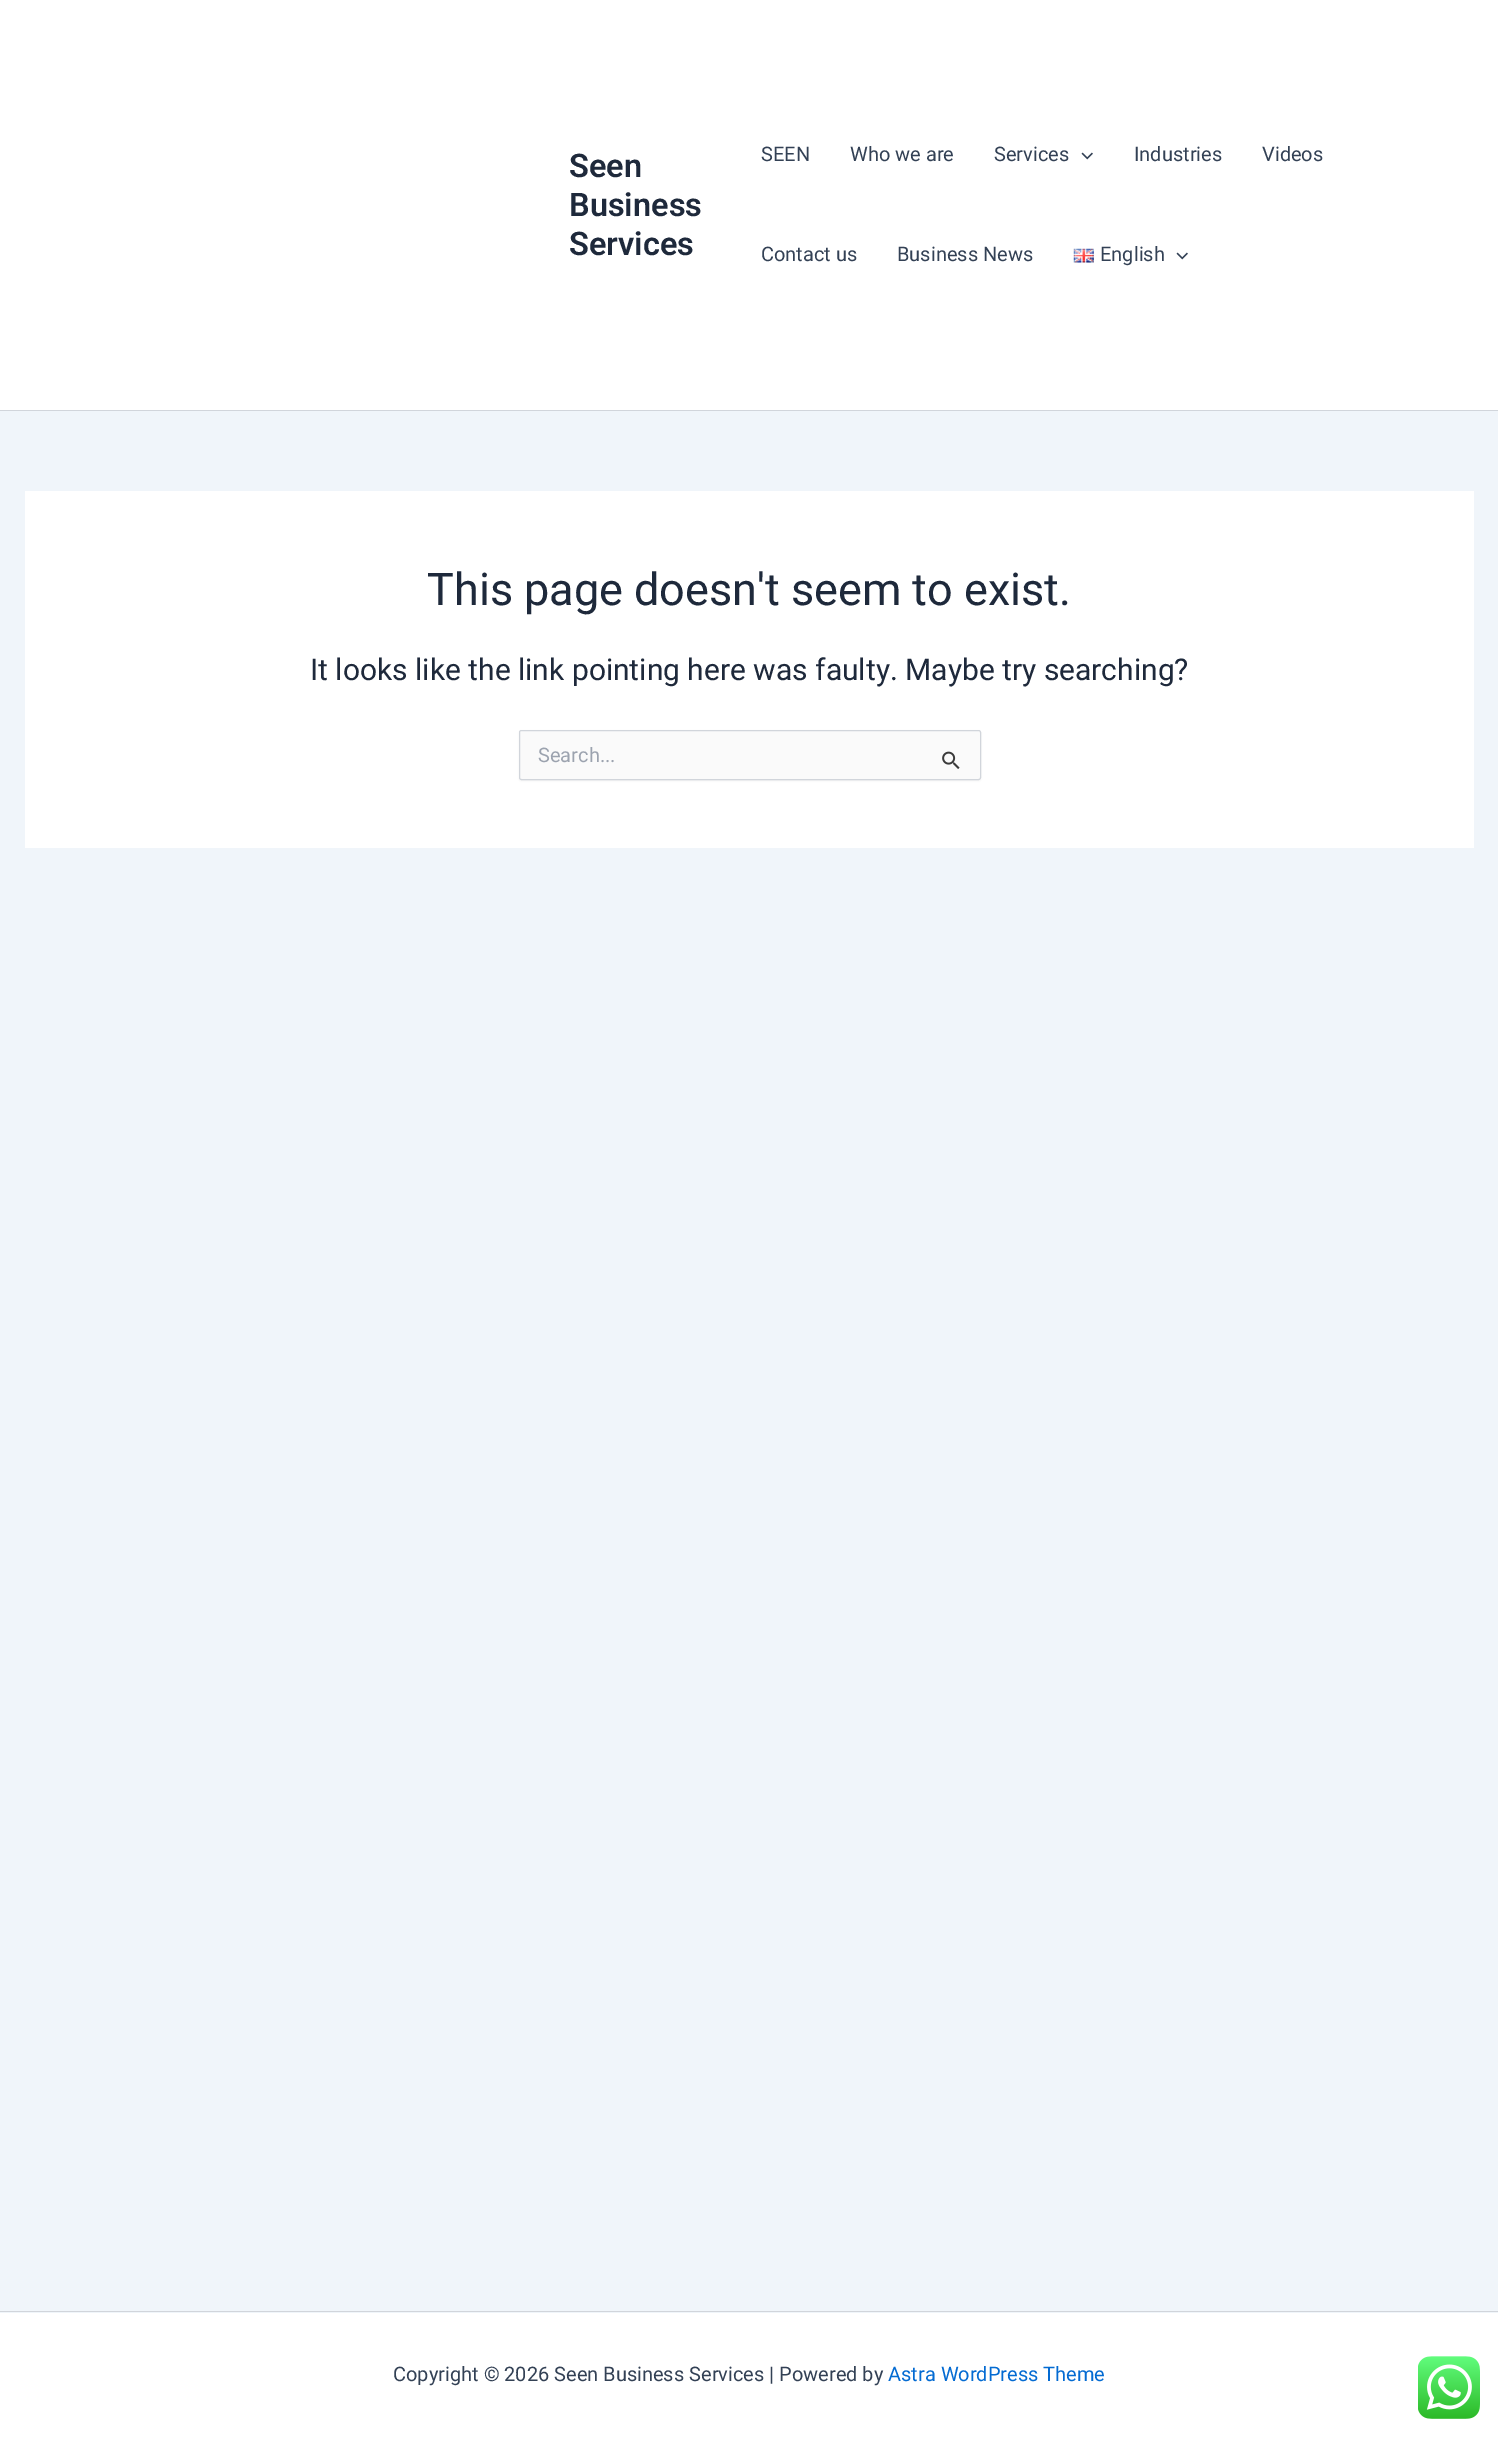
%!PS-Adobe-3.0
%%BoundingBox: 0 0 1498 2437
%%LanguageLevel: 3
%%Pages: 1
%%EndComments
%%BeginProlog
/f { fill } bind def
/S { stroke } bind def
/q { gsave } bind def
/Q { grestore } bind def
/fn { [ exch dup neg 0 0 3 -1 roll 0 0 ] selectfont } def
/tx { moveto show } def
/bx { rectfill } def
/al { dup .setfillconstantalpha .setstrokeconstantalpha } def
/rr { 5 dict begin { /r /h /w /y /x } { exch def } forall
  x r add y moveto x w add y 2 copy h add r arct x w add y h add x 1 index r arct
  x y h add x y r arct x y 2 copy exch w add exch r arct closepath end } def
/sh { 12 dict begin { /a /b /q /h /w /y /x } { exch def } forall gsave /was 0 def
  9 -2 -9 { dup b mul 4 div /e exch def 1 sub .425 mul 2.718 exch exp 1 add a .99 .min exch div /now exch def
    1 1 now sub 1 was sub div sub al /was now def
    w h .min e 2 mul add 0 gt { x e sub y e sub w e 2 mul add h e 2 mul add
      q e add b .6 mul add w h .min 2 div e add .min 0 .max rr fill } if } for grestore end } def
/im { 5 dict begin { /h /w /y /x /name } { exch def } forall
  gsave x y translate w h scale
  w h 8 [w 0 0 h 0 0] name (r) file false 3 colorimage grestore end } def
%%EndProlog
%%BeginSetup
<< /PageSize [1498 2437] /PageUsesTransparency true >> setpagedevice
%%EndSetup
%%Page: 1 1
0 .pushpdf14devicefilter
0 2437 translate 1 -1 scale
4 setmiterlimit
0.941 0.961 0.98 setrgbcolor
0 0 1498 2437 bx
1 setgray
0 0 1498 410 bx
0.82 0.835 0.859 setrgbcolor
0 410 1498 1 bx
/Roboto-SemiBold 32.5 fn
0.118 0.161 0.231 setrgbcolor
(Seen) 569 177 tx
(Business) 569 216 tx
(Services) 569 255 tx
/Roboto-Regular 20 fn
0.2 0.255 0.333 setrgbcolor
(SEEN) 761 161 tx
(Who we are) 850 161 tx
(Services) 994 161 tx
(image0.raw) 1081 152 12 8 im
(Industries) 1134 161 tx
(Videos) 1262 161 tx
(Contact us) 761 261 tx
(Business News) 897 261 tx
(image1.raw) 1073 248 21 15 im
(English) 1100 261 tx
(image0.raw) 1176 252 12 8 im
1 setgray
25 491 1449 357 bx
/Roboto-Regular 45 fn
0.118 0.161 0.231 setrgbcolor
(This page doesn't seem to exist.) 427 605 tx
/Roboto-Regular 30 fn
(It looks like the link pointing here was faulty. Maybe try searching?) 310 680 tx
0 setgray
519 731 462 50 2.5 1 0.05 sh
0.98 setgray
519.5 730.5 461 49 2 rr q f Q
0.82 0.835 0.859 setrgbcolor
S
/Roboto-Regular 20 fn
0.612 0.639 0.686 setrgbcolor
(Search...) 538 762 tx
(image2.raw) 942 751 18 18 im
1 setgray
0 2313 1498 124 bx
0.82 0.835 0.859 setrgbcolor
0 2311 1498 1 bx
0.2 0.255 0.333 setrgbcolor
(Copyright © 2026 Seen Business Services | Powered by) 393 2381 tx
0.016 0.42 0.824 setrgbcolor
(Astra WordPress Theme) 888 2381 tx
(image3.raw) 1418 2356 62 63 im
.poppdf14devicefilter showpage
%%EOF
